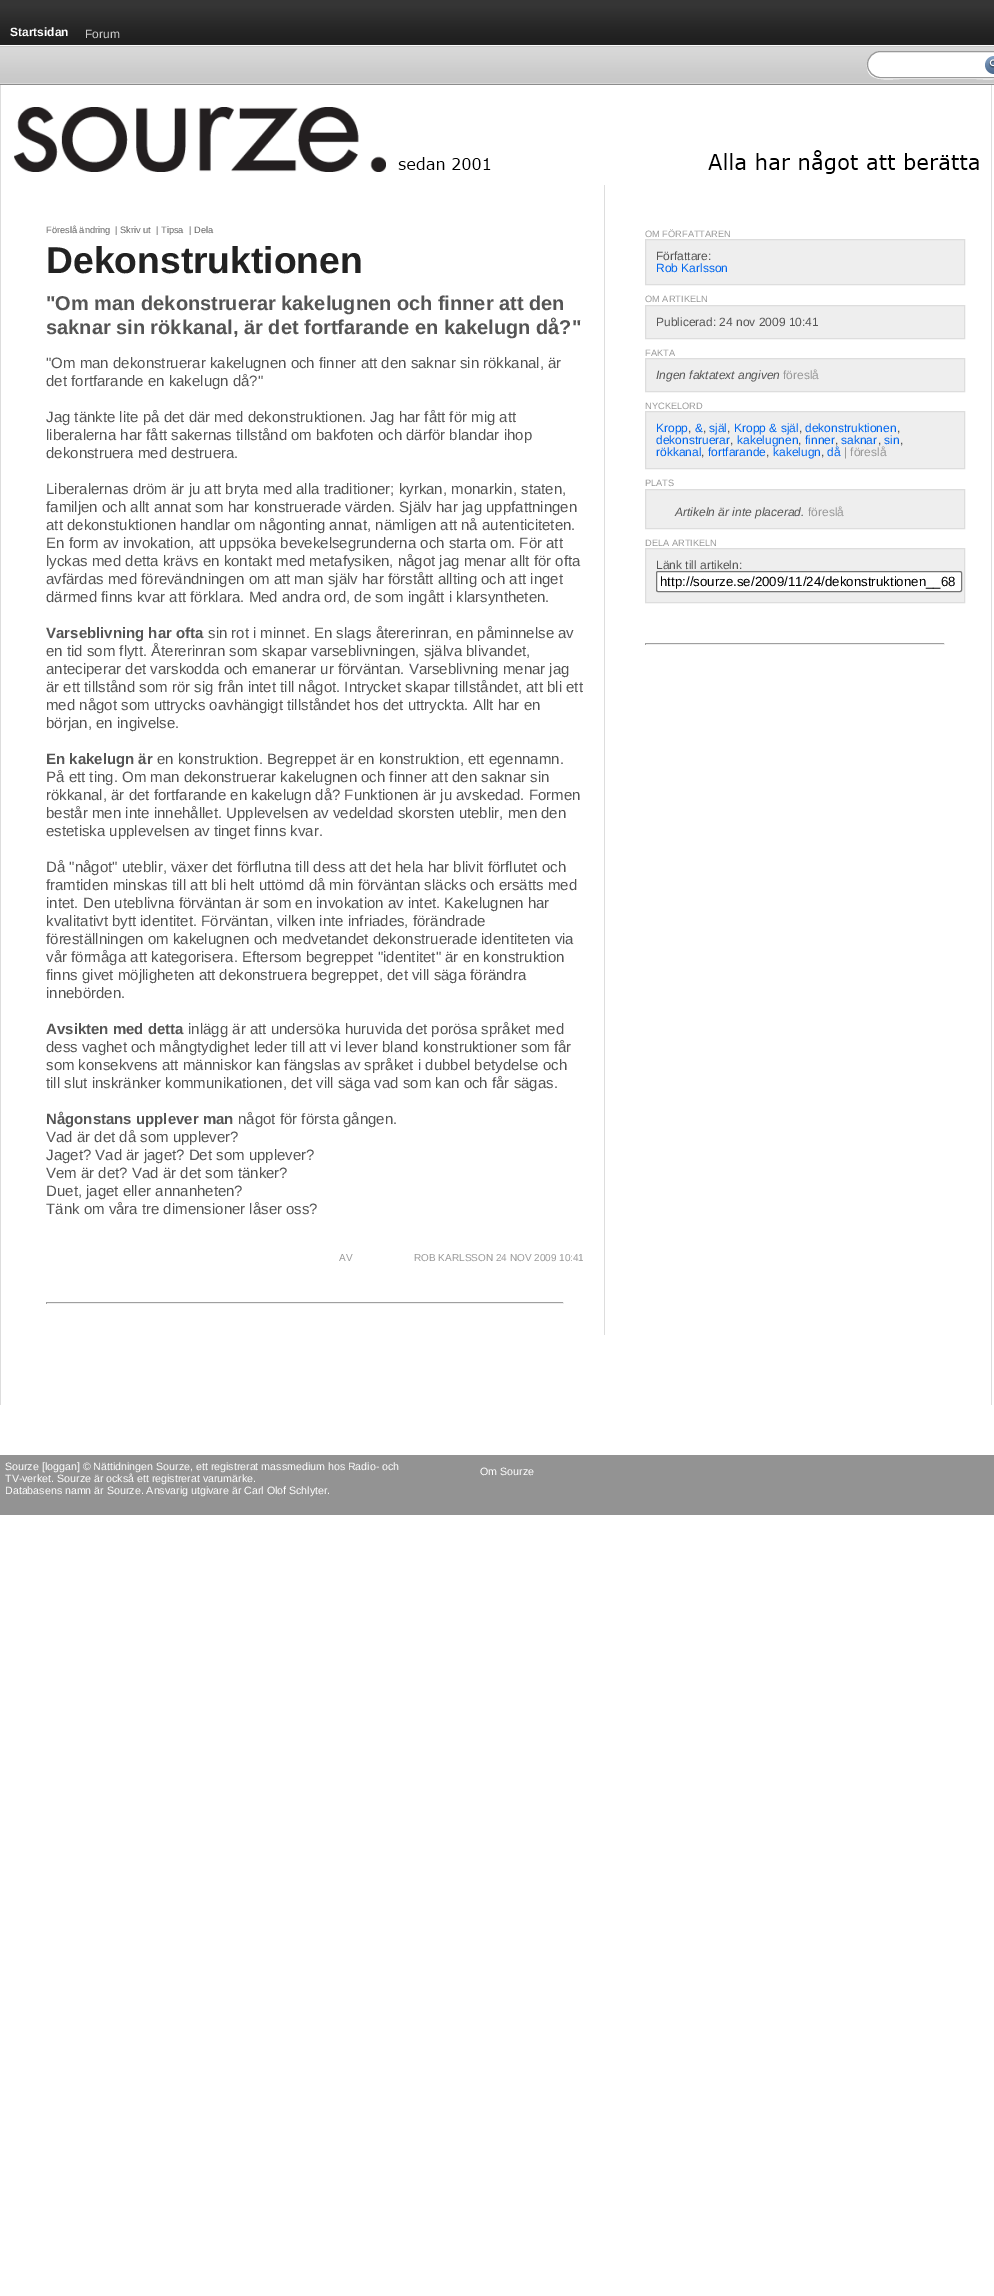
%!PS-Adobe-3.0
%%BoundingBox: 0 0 994 2296
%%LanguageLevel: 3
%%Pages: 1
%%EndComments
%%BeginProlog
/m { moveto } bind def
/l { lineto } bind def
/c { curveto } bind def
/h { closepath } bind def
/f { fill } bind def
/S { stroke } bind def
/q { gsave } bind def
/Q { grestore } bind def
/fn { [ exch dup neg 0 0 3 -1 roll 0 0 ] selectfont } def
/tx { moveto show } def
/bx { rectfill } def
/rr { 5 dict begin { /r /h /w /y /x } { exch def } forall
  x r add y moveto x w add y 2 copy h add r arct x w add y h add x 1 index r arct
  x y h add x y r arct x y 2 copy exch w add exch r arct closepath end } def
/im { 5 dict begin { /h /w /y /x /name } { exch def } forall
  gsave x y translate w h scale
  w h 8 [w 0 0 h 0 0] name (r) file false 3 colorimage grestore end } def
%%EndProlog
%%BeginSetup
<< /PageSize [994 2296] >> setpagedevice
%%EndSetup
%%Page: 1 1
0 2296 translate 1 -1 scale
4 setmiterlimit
1 setgray
0 0 994 2296 bx
(image0.raw) 0 0 994 45 im
/LiberationSans-Bold 12 fn
(Startsidan) 10 36 tx
/LiberationSans-Regular 12 fn
0.8 setgray
(Forum) 85 38 tx
(image1.raw) 0 45 994 40 im
1 setgray
867 65 m 866 83 889 79 900 79 c 976 79 l 987 79 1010 83 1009 65 c 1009 72 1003 78 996 78 c 880 78 l 873 78 867 72 867 65 c h f
867.5 51.5 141 26 13 rr q f Q
0.6 setgray
S
(image2.raw) 985 56 9 18 im
0.867 setgray
0 85 1 1320 bx
991 85 1 1320 bx
(image3.raw) 14 107 965 67 im
604 185 1 1150 bx
/LiberationSans-Regular 9.25 fn
0.4 setgray
(Föreslå ändring) 46 233 tx
(| Skriv ut) 115 233 tx
(| Tipsa) 156 233 tx
(| Dela) 189 233 tx
/LiberationSans-Bold 37.25 fn
0.133 setgray
(Dekonstruktionen) 46 273 tx
/LiberationSans-Bold 20 fn
0.333 setgray
("Om man dekonstruerar kakelugnen och finner att den) 46 310 tx
(saknar sin rökkanal, är det fortfarande en kakelugn då?") 46 334 tx
/LiberationSans-Regular 15 fn
("Om man dekonstruerar kakelugnen och finner att den saknar sin rökkanal, är) 46 368 tx
(det fortfarande en kakelugn då?") 46 386 tx
(Jag tänkte lite på det där med dekonstruktionen. Jag har fått för mig att) 46 422 tx
(liberalerna har fått sakernas tillstånd om bakfoten och därför blandar ihop) 46 440 tx
(dekonstruera med destruera.) 46 458 tx
(Liberalernas dröm är ju att bryta med alla traditioner; kyrkan, monarkin, staten,) 46 494 tx
(familjen och allt annat som har konstruerade värden. Själv har jag uppfattningen) 46 512 tx
(att dekonstuktionen handlar om någonting annat, nämligen att nå autenticiteten.) 46 530 tx
(En form av invokation, att uppsöka bevekelsegrunderna och starta om. För att) 46 548 tx
(lyckas med detta krävs en kontakt med metafysiken, något jag menar allt för ofta) 46 566 tx
(avfärdas med förevändningen om att man själv har förstått allting och att inget) 46 584 tx
(därmed finns kvar att förklara. Med andra ord, de som ingått i klarsyntheten.) 46 602 tx
/LiberationSans-Bold 15 fn
(Varseblivning har ofta) 46 638 tx
/LiberationSans-Regular 15 fn
(sin rot i minnet. En slags återerinran, en påminnelse av) 208 638 tx
(en tid som flytt. Återerinran som skapar varseblivningen, själva blivandet,) 46 656 tx
(anteciperar det varskodda och emanerar ur förväntan. Varseblivning menar jag) 46 674 tx
(är ett tillstånd som rör sig från intet till något. Intrycket skapar tillståndet, att bli ett) 46 692 tx
(med något som uttrycks oavhängigt tillståndet hos det uttryckta. Allt har en) 46 710 tx
(början, en ingivelse.) 46 728 tx
/LiberationSans-Bold 15 fn
(En kakelugn är) 46 764 tx
/LiberationSans-Regular 15 fn
(en konstruktion. Begreppet är en konstruktion, ett egennamn.) 157 764 tx
(På ett ting. Om man dekonstruerar kakelugnen och finner att den saknar sin) 46 782 tx
(rökkanal, är det fortfarande en kakelugn då? Funktionen är ju avskedad. Formen) 46 800 tx
(består men inte innehållet. Upplevelsen av vedeldad skorsten uteblir, men den) 46 818 tx
(estetiska upplevelsen av tinget finns kvar.) 46 836 tx
(Då "något" uteblir, växer det förflutna till dess att det hela har blivit förflutet och) 46 872 tx
(framtiden minskas till att bli helt uttömd då min förväntan släcks och ersätts med) 46 890 tx
(intet. Den uteblivna förväntan är som en invokation av intet. Kakelugnen har) 46 908 tx
(kvalitativt bytt identitet. Förväntan, vilken inte infriades, förändrade) 46 926 tx
(föreställningen om kakelugnen och medvetandet dekonstruerade identiteten via) 46 944 tx
(vår förmåga att kategorisera. Eftersom begreppet "identitet" är en konstruktion) 46 962 tx
(finns givet möjligheten att dekonstruera begreppet, det vill säga förändra) 46 980 tx
(innebörden.) 46 998 tx
/LiberationSans-Bold 15 fn
(Avsikten med detta) 46 1034 tx
/LiberationSans-Regular 15 fn
(inlägg är att undersöka huruvida det porösa språket med) 188 1034 tx
(dess vaghet och mångtydighet leder till att vi lever bland konstruktioner som får) 46 1052 tx
(som konsekvens att människor kan fängslas av språket i dubbel betydelse och) 46 1070 tx
(till slut inskränker kommunikationen, det vill säga vad som kan och får sägas.) 46 1088 tx
/LiberationSans-Bold 15 fn
(Någonstans upplever man) 46 1124 tx
/LiberationSans-Regular 15 fn
(något för första gången.) 238 1124 tx
(Vad är det då som upplever?) 46 1142 tx
(Jaget? Vad är jaget? Det som upplever?) 46 1160 tx
(Vem är det? Vad är det som tänker?) 46 1178 tx
(Duet, jaget eller annanheten?) 46 1196 tx
(Tänk om våra tre dimensioner låser oss?) 46 1214 tx
/LiberationSans-Regular 10 fn
0.6 setgray
(AV) 339 1261 tx
(ROB KARLSSON 24 NOV 2009 10:41) 414 1261 tx
0.624 setgray
46 1302 518 1 bx
0.933 setgray
563 1302 1 2 bx
46 1303 518 1 bx
0.624 setgray
46 1302 1 2 bx
/LiberationSans-Regular 9.25 fn
0.6 setgray
(OM FÖRFATTAREN) 645 237 tx
0.933 setgray
645.5 239.5 m 964.5 239.5 l 964.5 284.5 l 645.5 284.5 l h q f Q
0.867 setgray
S
/LiberationSans-Regular 12 fn
0.333 setgray
(Författare:) 656 260 tx
0 0.4 0.933 setrgbcolor
(Rob Karlsson) 656 272 tx
/LiberationSans-Regular 9.25 fn
0.6 setgray
(OM ARTIKELN) 645 302 tx
0.933 setgray
645.5 305.5 m 964.5 305.5 l 964.5 338.5 l 645.5 338.5 l h q f Q
0.867 setgray
S
/LiberationSans-Regular 12 fn
0.333 setgray
(Publicerad: 24 nov 2009 10:41) 656 326 tx
/LiberationSans-Regular 9.25 fn
0.6 setgray
(FAKTA) 645 356 tx
0.933 setgray
645.5 358.5 m 964.5 358.5 l 964.5 391.5 l 645.5 391.5 l h q f Q
0.867 setgray
S
/LiberationSans-Italic 12 fn
0.333 setgray
(Ingen faktatext angiven) 656 379 tx
/LiberationSans-Regular 12 fn
0.6 setgray
(föreslå) 783 379 tx
/LiberationSans-Regular 9.25 fn
(NYCKELORD) 645 409 tx
0.933 setgray
645.5 411.5 m 964.5 411.5 l 964.5 468.5 l 645.5 468.5 l h q f Q
0.867 setgray
S
/LiberationSans-Regular 12 fn
0 0.4 0.933 setrgbcolor
(Kropp) 656 432 tx
0.333 setgray
(,) 688 432 tx
0 0.4 0.933 setrgbcolor
(&) 695 432 tx
0.333 setgray
(,) 703 432 tx
0 0.4 0.933 setrgbcolor
(själ) 709 432 tx
0.333 setgray
(,) 727 432 tx
0 0.4 0.933 setrgbcolor
(Kropp & själ) 734 432 tx
0.333 setgray
(,) 799 432 tx
0 0.4 0.933 setrgbcolor
(dekonstruktionen) 805 432 tx
0.333 setgray
(,) 897 432 tx
0 0.4 0.933 setrgbcolor
(dekonstruerar) 656 444 tx
0.333 setgray
(,) 730 444 tx
0 0.4 0.933 setrgbcolor
(kakelugnen) 737 444 tx
0.333 setgray
(,) 798 444 tx
0 0.4 0.933 setrgbcolor
(finner) 805 444 tx
0.333 setgray
(,) 835 444 tx
0 0.4 0.933 setrgbcolor
(saknar) 841 444 tx
0.333 setgray
(,) 878 444 tx
0 0.4 0.933 setrgbcolor
(sin) 884 444 tx
0.333 setgray
(,) 900 444 tx
0 0.4 0.933 setrgbcolor
(rökkanal) 656 456 tx
0.333 setgray
(,) 701 456 tx
0 0.4 0.933 setrgbcolor
(fortfarande) 708 456 tx
0.333 setgray
(,) 766 456 tx
0 0.4 0.933 setrgbcolor
(kakelugn) 773 456 tx
0.333 setgray
(,) 821 456 tx
0 0.4 0.933 setrgbcolor
(då) 827 456 tx
0.6 setgray
(| föreslå) 844 456 tx
/LiberationSans-Regular 9.25 fn
(PLATS) 645 486 tx
0.933 setgray
645.5 489.5 m 964.5 489.5 l 964.5 528.5 l 645.5 528.5 l h q f Q
0.867 setgray
S
/LiberationSans-Italic 12 fn
0.333 setgray
(Artikeln är inte placerad.) 675 516 tx
/LiberationSans-Regular 12 fn
0.6 setgray
(föreslå) 808 516 tx
/LiberationSans-Regular 9.25 fn
(DELA ARTIKELN) 645 546 tx
0.933 setgray
645.5 548.5 m 964.5 548.5 l 964.5 602.5 l 645.5 602.5 l h q f Q
0.867 setgray
S
/LiberationSans-Regular 12 fn
0.333 setgray
(Länk till artikeln:) 656 569 tx
1 setgray
656.5 571.5 305 20 1.5 rr q f Q
0.463 setgray
S
/LiberationSans-Regular 13.3 fn
0 setgray
(http://sourze.se/2009/11/24/dekonstruktionen__68) 660 586 tx
0.624 setgray
645 643 300 1 bx
0.933 setgray
944 643 1 2 bx
645 644 300 1 bx
0.624 setgray
645 643 1 2 bx
0.576 setgray
0 1455 994 60 bx
/LiberationSans-Regular 10.65 fn
1 setgray
(Sourze [loggan] © Nättidningen Sourze, ett registrerat massmedium hos Radio- och) 5 1470 tx
(TV-verket. Sourze är också ett registrerat varumärke.) 5 1482 tx
(Databasens namn är Sourze. Ansvarig utgivare är Carl Olof Schlyter.) 5 1494 tx
(Om Sourze) 480 1475 tx
showpage
%%EOF
